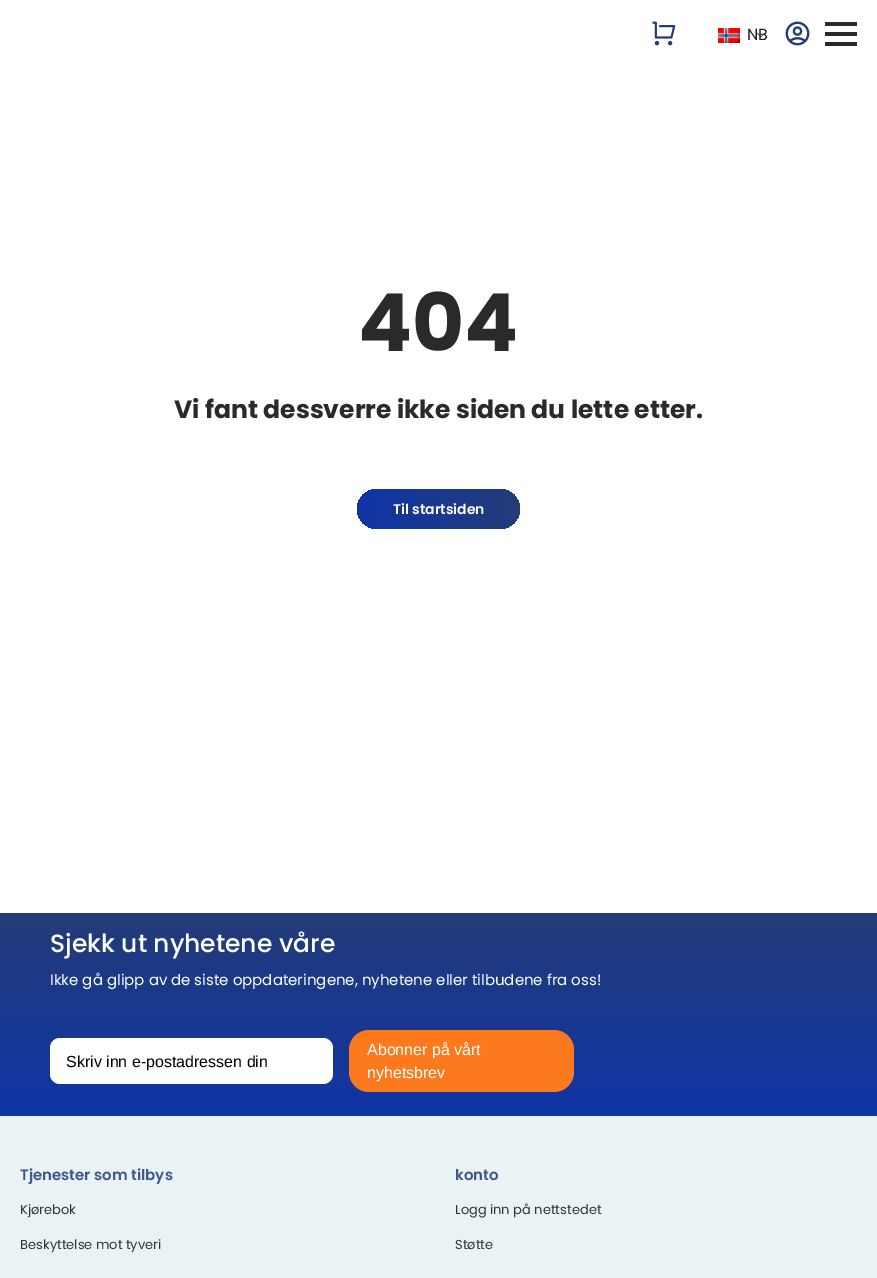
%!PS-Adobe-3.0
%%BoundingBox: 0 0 877 1278
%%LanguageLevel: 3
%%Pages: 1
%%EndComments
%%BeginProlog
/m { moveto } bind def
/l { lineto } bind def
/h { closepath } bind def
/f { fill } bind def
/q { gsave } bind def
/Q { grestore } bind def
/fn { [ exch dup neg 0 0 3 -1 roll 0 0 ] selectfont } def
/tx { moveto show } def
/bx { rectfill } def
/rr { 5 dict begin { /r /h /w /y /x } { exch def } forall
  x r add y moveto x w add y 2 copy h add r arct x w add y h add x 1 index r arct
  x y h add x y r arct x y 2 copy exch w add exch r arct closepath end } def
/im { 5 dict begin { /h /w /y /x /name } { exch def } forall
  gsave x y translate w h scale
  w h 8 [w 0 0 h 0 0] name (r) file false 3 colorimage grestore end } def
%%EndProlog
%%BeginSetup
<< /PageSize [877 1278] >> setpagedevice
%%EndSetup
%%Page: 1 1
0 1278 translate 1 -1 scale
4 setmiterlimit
1 setgray
0 0 877 1278 bx
(image0.raw) 652 21 24 25 im
(image1.raw) 757 32 8 5 im
(image2.raw) 718 28 22 15 im
/Poppins-Regular 16 fn
0.118 setgray
(NB) 747 40 tx
(image3.raw) 785 21 25 25 im
0.165 setgray
825 32 32 4 bx
825 22 32 4 bx
825 42 32 4 bx
/Poppins-Bold 80 fn
(404) 358 351 tx
/Poppins-Bold 25 fn
(Vi fant dessverre ikke siden du lette etter.) 174 418 tx
q 357 489 163 40 20 rr clip newpath
<< /ShadingType 2 /ColorSpace /DeviceRGB /Coords [357 509 520 509] /Extend [true true] /Function << /FunctionType 2 /Domain [0 1] /C0 [0.063 0.204 0.651] /C1 [0.137 0.235 0.471] /N 1 >> >> shfill Q
/Poppins-SemiBold 14 fn
1 setgray
(Til startsiden) 393 514 tx
q 0 913 m 877 913 l 877 1116 l 0 1116 l h clip newpath
<< /ShadingType 2 /ColorSpace /DeviceRGB /Coords [439 1116 439 913] /Extend [true true] /Function << /FunctionType 2 /Domain [0 1] /C0 [0.063 0.204 0.651] /C1 [0.137 0.235 0.471] /N 1 >> >> shfill Q
/Poppins-Medium 25 fn
(Sjekk ut nyhetene våre) 50 952 tx
/Poppins-Regular 15 fn
(Ikke gå glipp av de siste oppdateringene, nyhetene eller tilbudene fra oss!) 50 985 tx
50 1038 283 46 10 rr f
/LiberationSans-Regular 16 fn
0 setgray
(Skriv inn e-postadressen din) 66 1067 tx
0.988 0.475 0.118 setrgbcolor
349 1030 225 62 20 rr f
1 setgray
(Abonner på vårt) 367 1055 tx
(nyhetsbrev) 367 1078 tx
0.914 0.953 0.965 setrgbcolor
0 1116 877 162 bx
/Poppins-SemiBold 15 fn
0.247 0.341 0.541 setrgbcolor
(Tjenester som tilbys) 20 1180 tx
/Poppins-Regular 13 fn
0.2 setgray
(Kjørebok) 20 1214 tx
(Beskyttelse mot tyveri) 20 1249 tx
/Poppins-SemiBold 15 fn
0.247 0.341 0.541 setrgbcolor
(konto) 455 1180 tx
/Poppins-Regular 13 fn
0.2 setgray
(Logg inn på nettstedet) 455 1214 tx
(Støtte) 455 1249 tx
showpage
%%EOF
